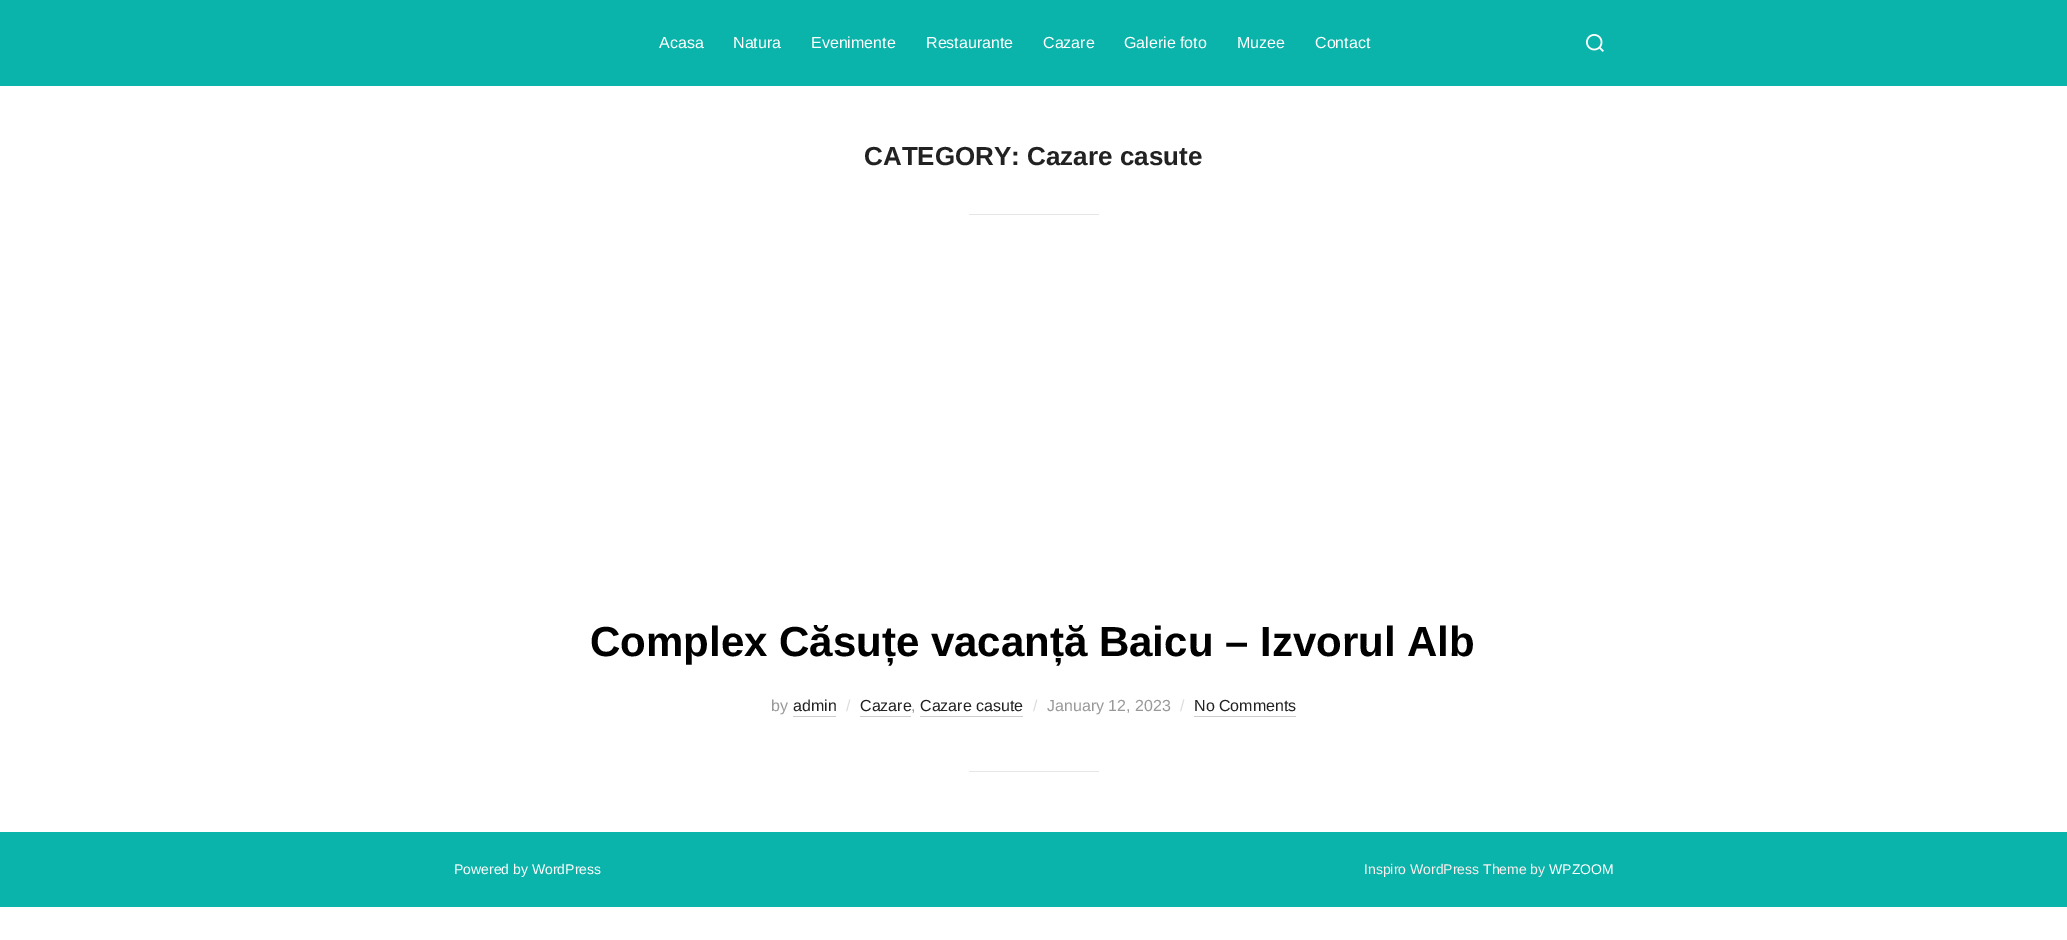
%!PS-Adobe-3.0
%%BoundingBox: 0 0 2067 940
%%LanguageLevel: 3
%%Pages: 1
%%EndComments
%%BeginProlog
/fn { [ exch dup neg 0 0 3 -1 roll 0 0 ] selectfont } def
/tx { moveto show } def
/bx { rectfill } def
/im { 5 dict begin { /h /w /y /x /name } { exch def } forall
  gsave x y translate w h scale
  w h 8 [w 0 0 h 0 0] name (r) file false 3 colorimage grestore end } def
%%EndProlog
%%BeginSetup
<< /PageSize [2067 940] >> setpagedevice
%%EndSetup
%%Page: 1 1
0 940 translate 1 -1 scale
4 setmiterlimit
1 setgray
0 0 2067 940 bx
0.043 0.706 0.667 setrgbcolor
0 0 2067 86 bx
/LiberationSans-Regular 16 fn
1 setgray
(Acasa) 659 48 tx
(Natura) 733 48 tx
(Evenimente) 811 48 tx
(Restaurante) 926 48 tx
(Cazare) 1043 48 tx
(Galerie foto) 1124 48 tx
(Muzee) 1237 48 tx
(Contact) 1315 48 tx
(image0.raw) 1586 34 18 18 im
/LiberationSans-Bold 26 fn
0.133 setgray
(CATEGORY: Cazare casute) 864 165 tx
0.902 setgray
969 214 130 1 bx
/LiberationSans-Bold 42 fn
0 setgray
(Complex Căsuțe vacanță Baicu – Izvorul Alb) 590 656 tx
/LiberationSans-Regular 16 fn
0.6 setgray
(by) 771 711 tx
0.133 setgray
(admin) 793 711 tx
0.8 setgray
793 716 43 1 bx
0.859 0.867 0.867 setrgbcolor
(/) 846 711 tx
0.133 setgray
(Cazare) 860 711 tx
0.6 setgray
(,) 911 711 tx
0.8 setgray
860 716 51 1 bx
920 716 103 1 bx
0.133 setgray
(Cazare casute) 920 711 tx
0.859 0.867 0.867 setrgbcolor
(/) 1033 711 tx
0.6 setgray
(January 12, 2023) 1047 711 tx
0.859 0.867 0.867 setrgbcolor
(/) 1180 711 tx
0.133 setgray
(No Comments) 1194 711 tx
0.8 setgray
1194 716 102 1 bx
0.902 setgray
969 771 130 1 bx
0.043 0.706 0.667 setrgbcolor
0 832 2067 75 bx
/LiberationSans-Regular 14 fn
1 setgray
(Powered by WordPress) 454 874 tx
1 0.937 0.937 setrgbcolor
(Inspiro WordPress Theme by) 1364 874 tx
1 setgray
(WPZOOM) 1549 874 tx
showpage
%%EOF
